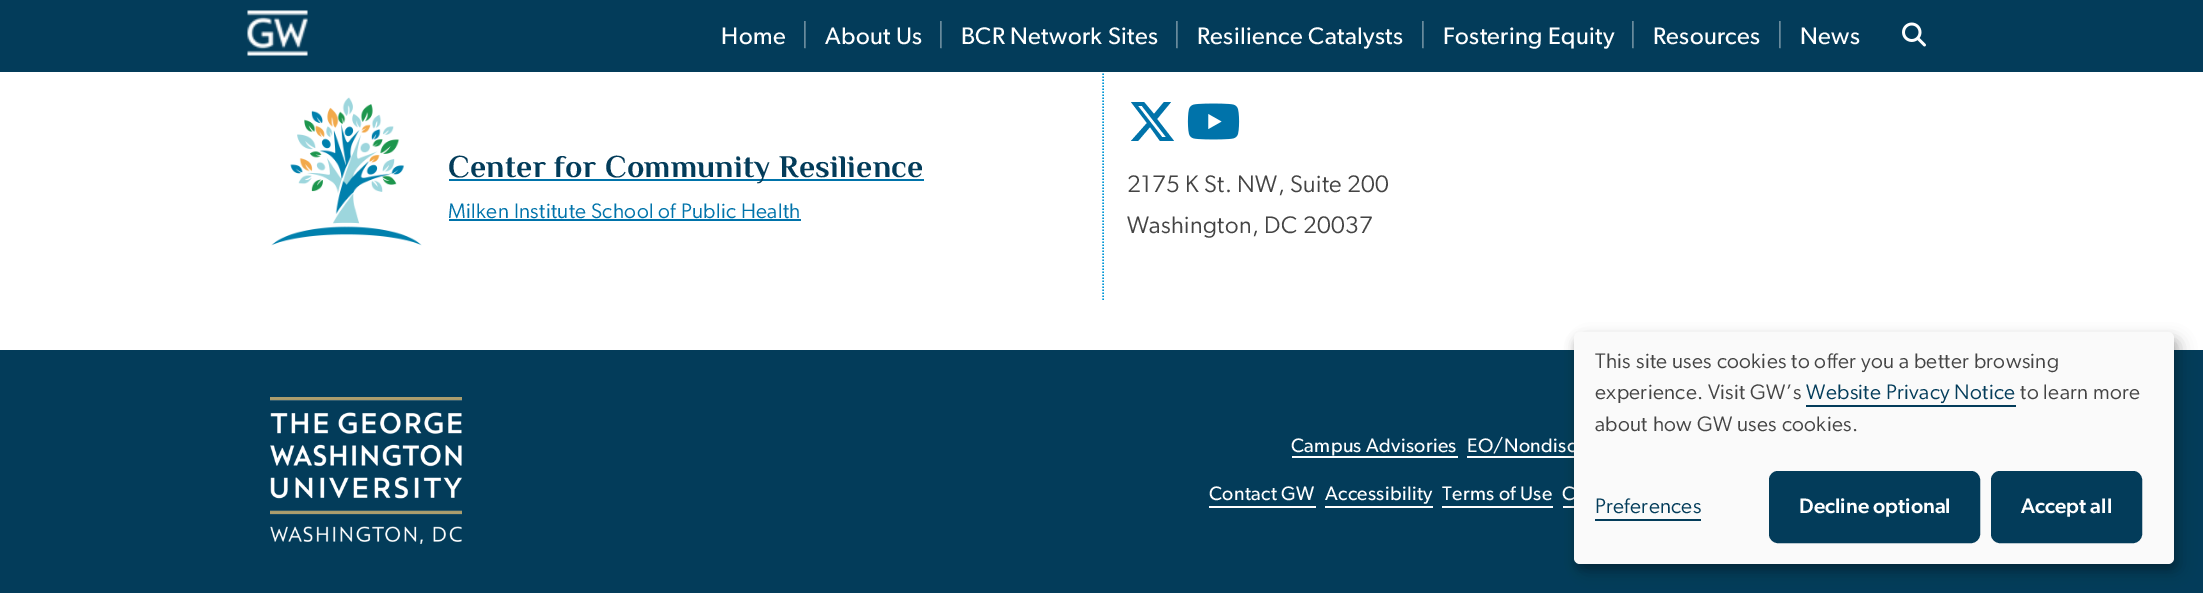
%!PS-Adobe-3.0
%%BoundingBox: 0 0 2203 594
%%LanguageLevel: 3
%%Pages: 1
%%EndComments
%%BeginProlog
/m { moveto } bind def
/l { lineto } bind def
/h { closepath } bind def
/f { fill } bind def
/S { stroke } bind def
/q { gsave } bind def
/Q { grestore } bind def
/w { setlinewidth } bind def
/fn { [ exch dup neg 0 0 3 -1 roll 0 0 ] selectfont } def
/tx { moveto show } def
/bx { rectfill } def
/al { dup .setfillconstantalpha .setstrokeconstantalpha } def
/rr { 5 dict begin { /r /h /w /y /x } { exch def } forall
  x r add y moveto x w add y 2 copy h add r arct x w add y h add x 1 index r arct
  x y h add x y r arct x y 2 copy exch w add exch r arct closepath end } def
/sh { 12 dict begin { /a /b /q /h /w /y /x } { exch def } forall gsave /was 0 def
  9 -2 -9 { dup b mul 4 div /e exch def 1 sub .425 mul 2.718 exch exp 1 add a .99 .min exch div /now exch def
    1 1 now sub 1 was sub div sub al /was now def
    w h .min e 2 mul add 0 gt { x e sub y e sub w e 2 mul add h e 2 mul add
      q e add b .6 mul add w h .min 2 div e add .min 0 .max rr fill } if } for grestore end } def
/im { 5 dict begin { /h /w /y /x /name } { exch def } forall
  gsave x y translate w h scale
  w h 8 [w 0 0 h 0 0] name (r) file false 3 colorimage grestore end } def
%%EndProlog
%%BeginSetup
<< /PageSize [2203 594] /PageUsesTransparency true >> setpagedevice
%%EndSetup
%%Page: 1 1
0 .pushpdf14devicefilter
0 594 translate 1 -1 scale
4 setmiterlimit
1 setgray
0 0 2203 594 bx
0 0.588 0.839 setrgbcolor
1.5 w
[1.5 1.5] 0 setdash
1103 61.5 m 1103 301.5 l S
0.012 0.235 0.353 setrgbcolor
0 0 2203 72 bx
(image0.raw) 247 10 61 46 im
/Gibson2-Regular 24 fn
1 setgray
721 44 m 0.37 0 (Home) ashow
/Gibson-Regular 30 fn
0.408 0.541 0.612 setrgbcolor
801 45 m 0.37 0 (|) ashow
/Gibson2-Regular 24 fn
1 setgray
825 44 m 0.37 0 (About Us) ashow
/Gibson-Regular 30 fn
0.408 0.541 0.612 setrgbcolor
937 45 m 0.37 0 (|) ashow
/Gibson2-Regular 24 fn
1 setgray
961 44 m 0.37 0 (BCR Network Sites) ashow
/Gibson-Regular 30 fn
0.408 0.541 0.612 setrgbcolor
1173 45 m 0.37 0 (|) ashow
/Gibson2-Regular 24 fn
1 setgray
1197 44 m 0.37 0 (Resilience Catalysts) ashow
/Gibson-Regular 30 fn
0.408 0.541 0.612 setrgbcolor
1419 45 m 0.37 0 (|) ashow
/Gibson2-Regular 24 fn
1 setgray
1443 44 m 0.37 0 (Fostering Equity) ashow
/Gibson-Regular 30 fn
0.408 0.541 0.612 setrgbcolor
1629 45 m 0.37 0 (|) ashow
/Gibson2-Regular 24 fn
1 setgray
1653 44 m 0.37 0 (Resources) ashow
/Gibson-Regular 30 fn
0.408 0.541 0.612 setrgbcolor
1776 45 m 0.37 0 (|) ashow
/Gibson2-Regular 24 fn
1 setgray
1800 44 m 0.37 0 (News) ashow
(image1.raw) 1902 22 24 25 im
(image2.raw) 271 97 151 149 im
0 0.451 0.667 setrgbcolor
449 179 475 2 bx
/Philosopher-Bold 31.5 fn
0.012 0.235 0.353 setrgbcolor
448 177 m 0.37 0 (Center for Community Resilience) ashow
/Gibson-Regular 21 fn
0 0.451 0.667 setrgbcolor
448 218 m 0.37 0 (Milken Institute School of Public Health) ashow
449 219 352 2 bx
1164 102 m 1171 102 l 1157 119 l 1174 141 l 1160 141 l 1150 127 l 1138 141 l 1131 141 l 1147 123 l 1131 102 l 1144 102 l 1154 114 l h 1162 137 m 1166 137 l 1142 106 l 1138 106 l h f
(image3.raw) 1187 103 53 37 im
/Gibson-Regular 24 fn
0.267 setgray
1127 192 m 0.37 0 (2175 K St. NW, Suite 200) ashow
1127 233 m 0.37 0 (Washington, DC 20037) ashow
0.012 0.235 0.353 setrgbcolor
0 350 2203 243 bx
(image4.raw) 270 397 192 147 im
/Gibson2-Regular 19.5 fn
1 setgray
1291 452 m 0.37 0 (Campus Advisories) ashow
1292 456 166 2 bx
1467 452 m 0.37 0 (EO/Nondisc) ashow
1467 456 107 2 bx
1209 500 m 0.37 0 (Contact GW) ashow
1209 506 107 2 bx
1325 500 m 0.37 0 (Accessibility) ashow
1325 506 108 2 bx
1442 500 m 0.37 0 (Terms of Use) ashow
1442 506 111 2 bx
1562 500 m 0.37 0 (C) ashow
1563 506 11 2 bx
0 setgray
1581 339 600 233 6 7.5 0.19 sh
1574 338 600 232 6 4.5 0.2 sh
0.98 setgray
1574 332 600 232 6 rr f
/Gibson-Regular 21 fn
0.267 setgray
1595 368 m 0.37 0 (This site uses cookies to offer you a better browsing) ashow
1595 399 m 0.37 0 (experience. Visit GW’s) ashow
0.012 0.235 0.353 setrgbcolor
1806 405 210 2 bx
1806 399 m 0.37 0 (Website Privacy Notice) ashow
0.267 setgray
2020 399 m 0.37 0 (to learn more) ashow
1595 431 m 0.37 0 (about how GW uses cookies.) ashow
0.012 0.235 0.353 setrgbcolor
1595 519 106 2 bx
1595 513 m 0.37 0 (Preferences) ashow
1771.5 473.5 206 67 6.5 rr q f Q
5 w
[] 0 setdash
S
/Gibson-Medium 21 fn
1 setgray
(Decline optional) 1799 513 tx
0.012 0.235 0.353 setrgbcolor
1993.5 473.5 146 67 6.5 rr q f Q
S
1 setgray
(Accept all) 2021 513 tx
.poppdf14devicefilter showpage
%%EOF
